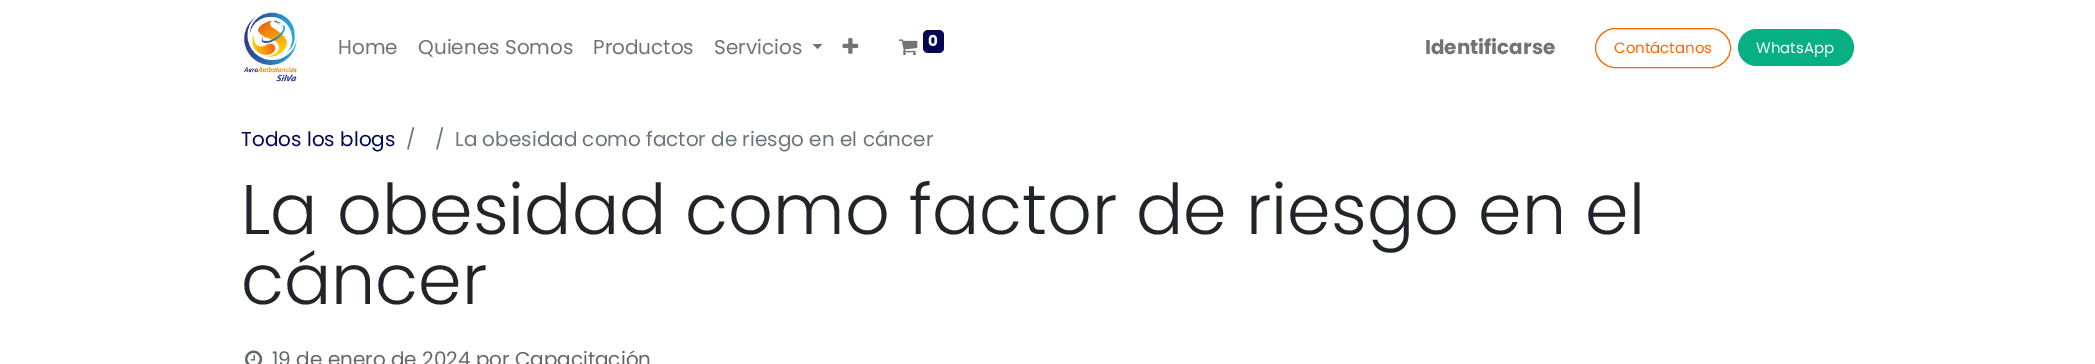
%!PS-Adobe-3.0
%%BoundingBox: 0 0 2095 364
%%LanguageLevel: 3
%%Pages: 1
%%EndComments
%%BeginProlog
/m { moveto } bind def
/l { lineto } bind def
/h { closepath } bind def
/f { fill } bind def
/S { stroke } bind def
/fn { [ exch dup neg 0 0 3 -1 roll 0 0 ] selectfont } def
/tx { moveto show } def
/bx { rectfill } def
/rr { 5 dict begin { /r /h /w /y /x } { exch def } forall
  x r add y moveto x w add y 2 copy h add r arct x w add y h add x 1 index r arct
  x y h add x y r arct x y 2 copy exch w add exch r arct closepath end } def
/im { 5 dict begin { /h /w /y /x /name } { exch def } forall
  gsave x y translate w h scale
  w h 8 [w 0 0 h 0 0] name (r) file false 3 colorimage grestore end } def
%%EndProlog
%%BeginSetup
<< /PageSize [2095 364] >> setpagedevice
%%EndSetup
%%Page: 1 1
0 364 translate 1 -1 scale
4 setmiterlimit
1 setgray
0 0 2095 364 bx
(image0.raw) 244 12 53 70 im
/Poppins-Regular 20 fn
0.451 setgray
(Home) 338 54 tx
(Quienes Somos) 418 54 tx
(Productos) 593 54 tx
(Servicios) 714 54 tx
812.5 44 m 822.5 44 l 817.5 49 l h f
(image1.raw) 842 38 17 16 im
(image2.raw) 898 39 20 17 im
0.012 0.027 0.329 setrgbcolor
923 30 21 23 5 rr f
/Poppins-Bold 15 fn
1 setgray
(0) 928 46 tx
/Poppins-Bold 20 fn
0.451 setgray
(Identificarse) 1425 54 tx
1 0.4 0 setrgbcolor
1595.5 28.5 135 39 19.5 rr S
/Poppins-Regular 15 fn
(Contáctanos) 1614 53 tx
0.027 0.69 0.514 setrgbcolor
1738 29 116 37 18.5 rr f
1 setgray
(WhatsApp) 1756 53 tx
/Poppins-Regular 20 fn
0.012 0.027 0.329 setrgbcolor
(Todos los blogs) 241 146 tx
0.424 0.459 0.49 setrgbcolor
(/) 406 146 tx
(/) 435 146 tx
(La obesidad como factor de riesgo en el cáncer) 455 146 tx
/Poppins-Light 70 fn
0.129 0.145 0.161 setrgbcolor
(La obesidad como factor de riesgo en el) 241 234 tx
(cáncer) 241 304 tx
(image3.raw) 245 350 18 14 im
/Poppins-Regular 20 fn
0.392 0.4 0.412 setrgbcolor
(19 de enero de 2024 por Capacitación) 272 366 tx
showpage
%%EOF
